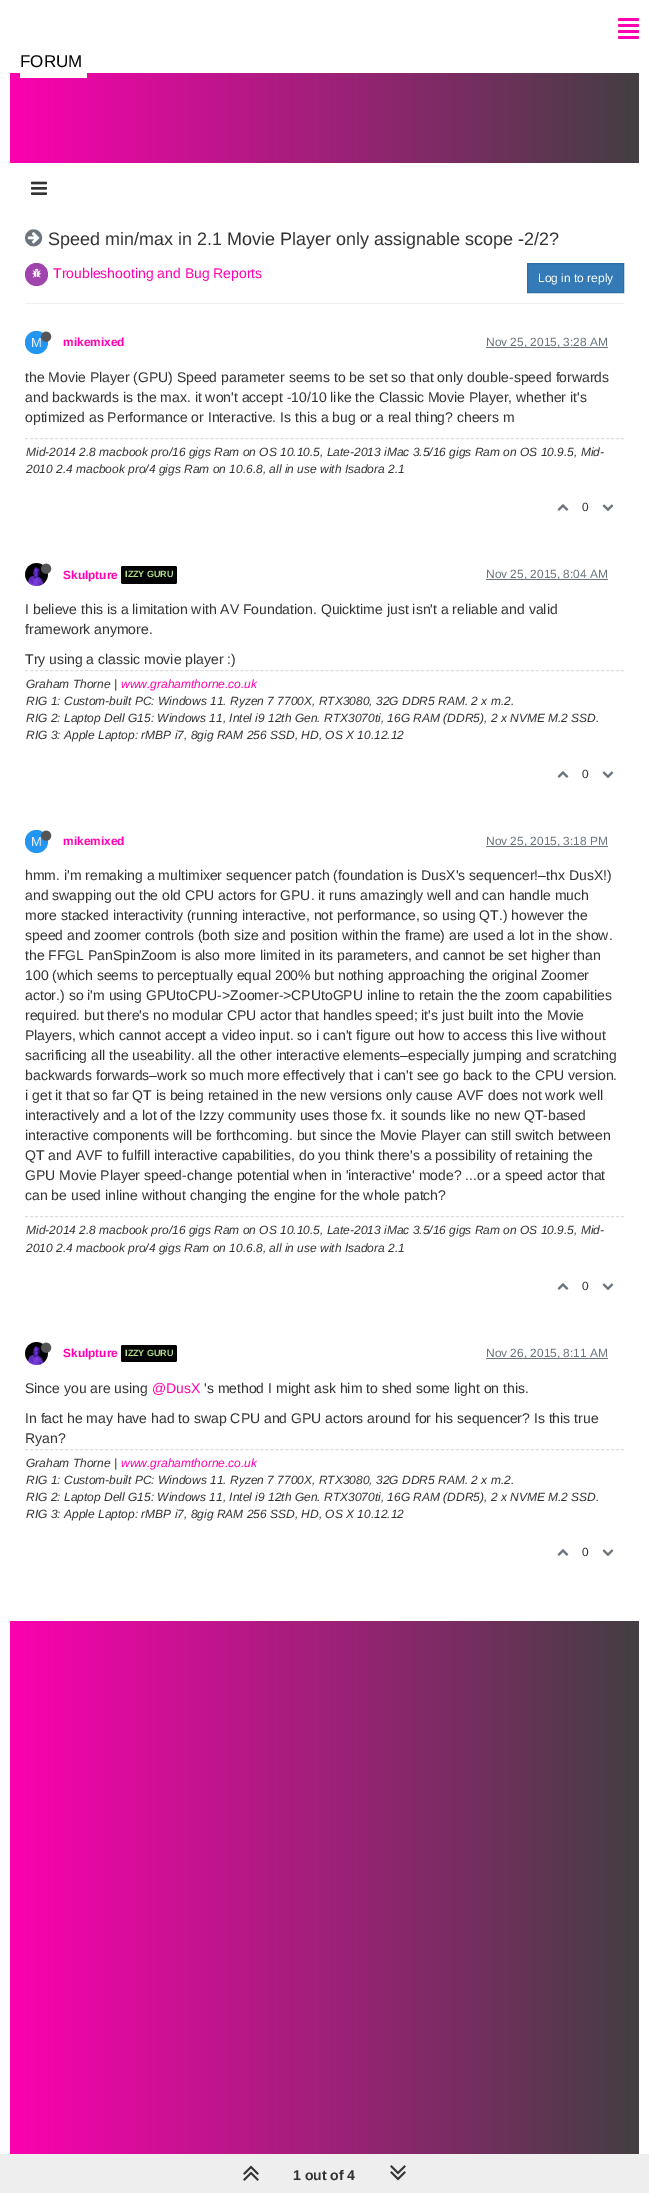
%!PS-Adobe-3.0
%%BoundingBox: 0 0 649 2193
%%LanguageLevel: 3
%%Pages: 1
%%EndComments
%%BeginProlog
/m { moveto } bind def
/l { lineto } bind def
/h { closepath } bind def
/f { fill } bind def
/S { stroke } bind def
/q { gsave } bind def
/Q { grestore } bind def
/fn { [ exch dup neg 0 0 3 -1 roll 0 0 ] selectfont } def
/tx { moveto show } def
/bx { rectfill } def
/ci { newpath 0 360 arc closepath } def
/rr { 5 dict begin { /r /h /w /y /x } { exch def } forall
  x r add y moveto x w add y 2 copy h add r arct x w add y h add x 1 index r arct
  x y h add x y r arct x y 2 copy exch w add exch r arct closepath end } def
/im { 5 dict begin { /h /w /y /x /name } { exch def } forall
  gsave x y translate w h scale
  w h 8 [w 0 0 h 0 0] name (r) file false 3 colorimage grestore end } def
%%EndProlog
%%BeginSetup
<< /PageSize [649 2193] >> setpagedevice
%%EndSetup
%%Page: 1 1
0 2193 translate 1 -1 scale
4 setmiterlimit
1 setgray
0 0 649 2193 bx
q 10 73 m 639 73 l 639 2154 l 10 2154 l h clip newpath
<< /ShadingType 2 /ColorSpace /DeviceRGB /Coords [0 1097 649 1097] /Extend [true true] /Function << /FunctionType 2 /Domain [0 1] /C0 [1 0 0.698] /C1 [0.251 0.251 0.251] /N 1 >> >> shfill Q
1 0 0.698 setrgbcolor
618 18 21 3 1.5 rr f
618 24 21 3 1.5 rr f
618 30 21 3 1.5 rr f
618 36 21 3 1.5 rr f
1 setgray
20 73 67 5 bx
/LiberationSans-Regular 17 fn
0 setgray
(FORUM) 20 67 tx
1 setgray
10 163 629 1458 bx
(image0.raw) 31 181 16 14 im
(image1.raw) 25 229 18 18 im
/LiberationSans-Regular 18 fn
0.2 setgray
(Speed min/max in 2.1 Movie Player only assignable scope -2/2?) 48 245 tx
0.933 setgray
25 303 599 1 bx
0.624 0.267 0.678 setrgbcolor
36.5 274.5 11.5 ci f
(image2.raw) 32 268 10 10 im
/LiberationSans-Regular 14 fn
1 0 0.698 setrgbcolor
(Troubleshooting and Bug Reports) 53 278 tx
0.2 0.478 0.718 setrgbcolor
527.5 263.5 m 623.5 263.5 l 623.5 292.5 l 527.5 292.5 l h q f Q
0.18 0.427 0.643 setrgbcolor
S
/LiberationSans-Regular 12 fn
1 setgray
(Log in to reply) 538 282 tx
0.129 0.588 0.953 setrgbcolor
36.5 342.5 11.5 ci f
/LiberationSans-Regular 13 fn
0.933 setgray
(M) 31 347 tx
(image3.raw) 41 331 11 11 im
/LiberationSans-Bold 11.9 fn
1 0 0.698 setrgbcolor
(mikemixed) 63 346 tx
0.424 0.459 0.49 setrgbcolor
486 347 122 1 bx
/LiberationSans-Regular 11.9 fn
(Nov 25, 2015, 3:28 AM) 486 346 tx
/LiberationSans-Regular 14 fn
0.2 setgray
(the Movie Player \(GPU\) Speed parameter seems to be set so that only double-speed forwards) 25 382 tx
(and backwards is the max. it won't accept -10/10 like the Classic Movie Player, whether it's) 25 402 tx
(optimized as Performance or Interactive. Is this a bug or a real thing? cheers m) 25 422 tx
0.871 setgray
[3 2.01] 0 setdash
25 438.5 m 624 438.5 l S
/LiberationSans-Italic 12 fn
0.2 setgray
(Mid-2014 2.8 macbook pro/16 gigs Ram on OS 10.10.5, Late-2013 iMac 3.5/16 gigs Ram on OS 10.9.5, Mid-) 26 456 tx
(2010 2.4 macbook pro/4 gigs Ram on 10.6.8, all in use with Isadora 2.1) 26 473 tx
(image4.raw) 557 504 12 7 im
/LiberationSans-Regular 11.9 fn
(0) 582 511 tx
(image5.raw) 602 504 12 8 im
(image6.raw) 25 563 23 23 im
(image7.raw) 41 563 11 11 im
/LiberationSans-Bold 11.9 fn
1 0 0.698 setrgbcolor
(Skulpture) 63 579 tx
0 setgray
121 566 56 18 2 rr f
/LiberationSans-Bold 9 fn
0.694 0.867 0.549 setrgbcolor
(IZZY GURU) 125 577 tx
0.424 0.459 0.49 setrgbcolor
486 579 122 1 bx
/LiberationSans-Regular 11.9 fn
(Nov 25, 2015, 8:04 AM) 486 578 tx
/LiberationSans-Regular 14 fn
0.2 setgray
(I believe this is a limitation with AV Foundation. Quicktime just isn't a reliable and valid) 25 614 tx
(framework anymore.) 25 634 tx
(Try using a classic movie player :\)) 25 664 tx
0.871 setgray
25 670.5 m 624 670.5 l S
/LiberationSans-Italic 12 fn
0.2 setgray
(Graham Thorne |) 26 688 tx
1 0 0.698 setrgbcolor
(www.grahamthorne.co.uk) 121 688 tx
0.2 setgray
(RIG 1: Custom-built PC: Windows 11. Ryzen 7 7700X, RTX3080, 32G DDR5 RAM. 2 x m.2.) 26 705 tx
(RIG 2: Laptop Dell G15: Windows 11, Intel i9 12th Gen. RTX3070ti, 16G RAM \(DDR5\), 2 x NVME M.2 SSD.) 26 722 tx
(RIG 3: Apple Laptop: rMBP i7, 8gig RAM 256 SSD, HD, OS X 10.12.12) 26 739 tx
(image4.raw) 557 771 12 7 im
/LiberationSans-Regular 11.9 fn
(0) 582 778 tx
(image5.raw) 602 771 12 8 im
0.129 0.588 0.953 setrgbcolor
36.5 841.5 11.5 ci f
/LiberationSans-Regular 13 fn
0.933 setgray
(M) 31 846 tx
(image3.raw) 41 830 11 11 im
/LiberationSans-Bold 11.9 fn
1 0 0.698 setrgbcolor
(mikemixed) 63 845 tx
0.424 0.459 0.49 setrgbcolor
486 846 122 1 bx
/LiberationSans-Regular 11.9 fn
(Nov 25, 2015, 3:18 PM) 486 845 tx
/LiberationSans-Regular 14 fn
0.2 setgray
(hmm. i'm remaking a multimixer sequencer patch \(foundation is DusX's sequencer!–thx DusX!\)) 25 880 tx
(and swapping out the old CPU actors for GPU. it runs amazingly well and can handle much) 25 900 tx
(more stacked interactivity \(running interactive, not performance, so using QT.\) however the) 25 920 tx
(speed and zoomer controls \(both size and position within the frame\) are used a lot in the show.) 25 940 tx
(the FFGL PanSpinZoom is also more limited in its parameters, and cannot be set higher than) 25 960 tx
(100 \(which seems to perceptually equal 200% but nothing approaching the original Zoomer) 25 980 tx
(actor.\) so i'm using GPUtoCPU->Zoomer->CPUtoGPU inline to retain the the zoom capabilities) 25 1000 tx
(required. but there's no modular CPU actor that handles speed; it's just built into the Movie) 25 1020 tx
(Players, which cannot accept a video input. so i can't figure out how to access this live without) 25 1040 tx
(sacrificing all the useability. all the other interactive elements–especially jumping and scratching) 25 1060 tx
(backwards forwards–work so much more effectively that i can't see go back to the CPU version.) 25 1080 tx
(i get it that so far QT is being retained in the new versions only cause AVF does not work well) 25 1100 tx
(interactively and a lot of the Izzy community uses those fx. it sounds like no new QT-based) 25 1120 tx
(interactive components will be forthcoming. but since the Movie Player can still switch between) 25 1140 tx
(QT and AVF to fulfill interactive capabilities, do you think there's a possibility of retaining the) 25 1160 tx
(GPU Movie Player speed-change potential when in 'interactive' mode? ...or a speed actor that) 25 1180 tx
(can be used inline without changing the engine for the whole patch?) 25 1200 tx
0.871 setgray
25 1216.5 m 624 1216.5 l S
/LiberationSans-Italic 12 fn
0.2 setgray
(Mid-2014 2.8 macbook pro/16 gigs Ram on OS 10.10.5, Late-2013 iMac 3.5/16 gigs Ram on OS 10.9.5, Mid-) 26 1234 tx
(2010 2.4 macbook pro/4 gigs Ram on 10.6.8, all in use with Isadora 2.1) 26 1252 tx
(image4.raw) 557 1283 12 7 im
/LiberationSans-Regular 11.9 fn
(0) 582 1290 tx
(image5.raw) 602 1283 12 8 im
(image6.raw) 25 1342 23 23 im
(image7.raw) 41 1342 11 11 im
/LiberationSans-Bold 11.9 fn
1 0 0.698 setrgbcolor
(Skulpture) 63 1357 tx
0 setgray
121 1345 56 17 2 rr f
/LiberationSans-Bold 9 fn
0.694 0.867 0.549 setrgbcolor
(IZZY GURU) 125 1356 tx
0.424 0.459 0.49 setrgbcolor
486 1358 122 1 bx
/LiberationSans-Regular 11.9 fn
(Nov 26, 2015, 8:11 AM) 486 1357 tx
/LiberationSans-Regular 14 fn
0.2 setgray
(Since you are using) 25 1393 tx
1 0 0.698 setrgbcolor
(@DusX) 152 1393 tx
0.2 setgray
('s method I might ask him to shed some light on this.) 204 1393 tx
(In fact he may have had to swap CPU and GPU actors around for his sequencer? Is this true) 25 1423 tx
(Ryan?) 25 1443 tx
0.871 setgray
25 1449.5 m 624 1449.5 l S
/LiberationSans-Italic 12 fn
0.2 setgray
(Graham Thorne |) 26 1467 tx
1 0 0.698 setrgbcolor
(www.grahamthorne.co.uk) 121 1467 tx
0.2 setgray
(RIG 1: Custom-built PC: Windows 11. Ryzen 7 7700X, RTX3080, 32G DDR5 RAM. 2 x m.2.) 26 1484 tx
(RIG 2: Laptop Dell G15: Windows 11, Intel i9 12th Gen. RTX3070ti, 16G RAM \(DDR5\), 2 x NVME M.2 SSD.) 26 1501 tx
(RIG 3: Apple Laptop: rMBP i7, 8gig RAM 256 SSD, HD, OS X 10.12.12) 26 1518 tx
(image4.raw) 557 1549 12 7 im
/LiberationSans-Regular 11.9 fn
(0) 582 1556 tx
(image5.raw) 602 1549 12 8 im
0.933 setgray
0 2154 649 39 bx
(image8.raw) 243 2165 16 16 im
/LiberationSans-Bold 14 fn
0.2 setgray
(1 out of 4) 293 2180 tx
(image9.raw) 390 2165 16 16 im
showpage
%%EOF
